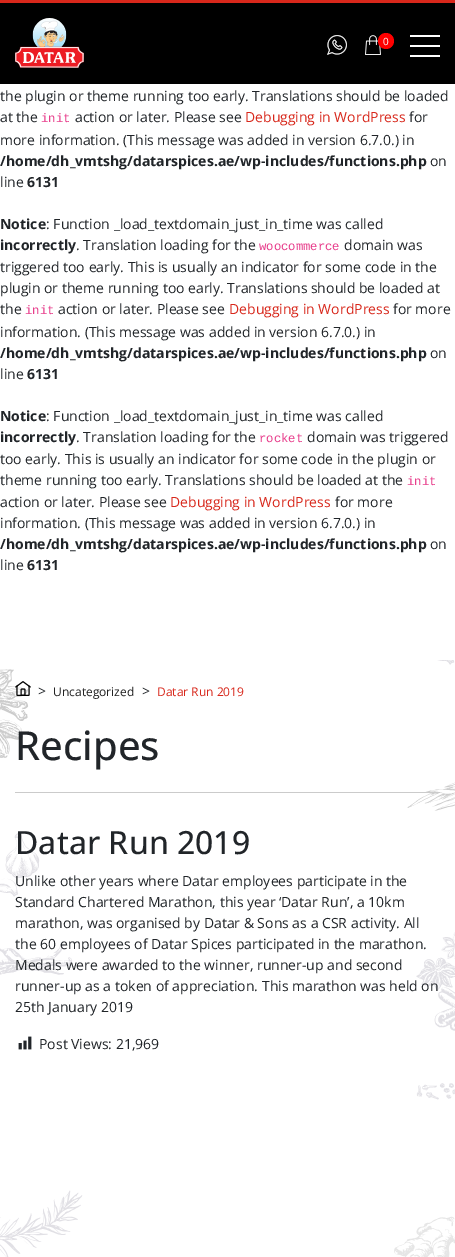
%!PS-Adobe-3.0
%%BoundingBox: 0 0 455 1257
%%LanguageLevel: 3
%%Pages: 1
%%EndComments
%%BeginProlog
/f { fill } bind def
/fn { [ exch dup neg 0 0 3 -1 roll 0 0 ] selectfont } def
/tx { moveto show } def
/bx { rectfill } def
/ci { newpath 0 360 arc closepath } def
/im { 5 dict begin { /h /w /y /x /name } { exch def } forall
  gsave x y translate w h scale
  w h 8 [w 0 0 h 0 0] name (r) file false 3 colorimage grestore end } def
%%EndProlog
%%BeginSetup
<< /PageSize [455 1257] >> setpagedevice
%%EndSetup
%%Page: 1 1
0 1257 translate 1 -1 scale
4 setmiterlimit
1 setgray
0 0 455 1257 bx
0 setgray
0 3 455 81 bx
0.847 0.153 0.106 setrgbcolor
0 0 455 3 bx
(image0.raw) 15 18 69 50 im
(image1.raw) 327 35 20 20 im
(image2.raw) 365 35 16 20 im
1 0 0 setrgbcolor
386 41 8 ci f
/OpenSans-Regular 10 fn
1 setgray
(0) 383 45 tx
410 45 30 2 bx
410 35 30 2 bx
410 55 30 2 bx
/OpenSans-Regular 14 fn
0.129 0.145 0.161 setrgbcolor
(the plugin or theme running too early. Translations should be loaded) 0 101 tx
(at the) 0 122 tx
/LiberationMono-Regular 12.25 fn
0.91 0.243 0.549 setrgbcolor
(init) 41 122 tx
/OpenSans-Regular 14 fn
0.129 0.145 0.161 setrgbcolor
(action or later. Please see) 75 122 tx
0.847 0.153 0.106 setrgbcolor
(Debugging in WordPress) 245 122 tx
0.129 0.145 0.161 setrgbcolor
(for) 409 122 tx
(more information. \(This message was added in version 6.7.0.\) in) 0 145 tx
/OpenSans-Bold 14 fn
(/home/dh_vmtshg/datarspices.ae/wp-includes/functions.php) 0 166 tx
/OpenSans-Regular 14 fn
(on) 430 166 tx
(line) 0 187 tx
/OpenSans-Bold 14 fn
(6131) 27 187 tx
(Notice) 0 229 tx
/OpenSans-Regular 14 fn
(: Function _load_textdomain_just_in_time was called) 46 229 tx
/OpenSans-Bold 14 fn
(incorrectly) 0 250 tx
/OpenSans-Regular 14 fn
(. Translation loading for the) 76 250 tx
/LiberationMono-Regular 12.25 fn
0.91 0.243 0.549 setrgbcolor
(woocommerce) 259 250 tx
/OpenSans-Regular 14 fn
0.129 0.145 0.161 setrgbcolor
(domain was) 344 250 tx
(triggered too early. This is usually an indicator for some code in the) 0 272 tx
(plugin or theme running too early. Translations should be loaded at) 0 293 tx
(the) 0 314 tx
/LiberationMono-Regular 12.25 fn
0.91 0.243 0.549 setrgbcolor
(init) 25 314 tx
/OpenSans-Regular 14 fn
0.129 0.145 0.161 setrgbcolor
(action or later. Please see) 58 314 tx
0.847 0.153 0.106 setrgbcolor
(Debugging in WordPress) 229 314 tx
0.129 0.145 0.161 setrgbcolor
(for more) 393 314 tx
(information. \(This message was added in version 6.7.0.\) in) 0 337 tx
/OpenSans-Bold 14 fn
(/home/dh_vmtshg/datarspices.ae/wp-includes/functions.php) 0 358 tx
/OpenSans-Regular 14 fn
(on) 430 358 tx
(line) 0 379 tx
/OpenSans-Bold 14 fn
(6131) 27 379 tx
(Notice) 0 421 tx
/OpenSans-Regular 14 fn
(: Function _load_textdomain_just_in_time was called) 46 421 tx
/OpenSans-Bold 14 fn
(incorrectly) 0 442 tx
/OpenSans-Regular 14 fn
(. Translation loading for the) 76 442 tx
/LiberationMono-Regular 12.25 fn
0.91 0.243 0.549 setrgbcolor
(rocket) 259 442 tx
/OpenSans-Regular 14 fn
0.129 0.145 0.161 setrgbcolor
(domain was triggered) 307 442 tx
(too early. This is usually an indicator for some code in the plugin or) 0 464 tx
(theme running too early. Translations should be loaded at the) 0 485 tx
/LiberationMono-Regular 12.25 fn
0.91 0.243 0.549 setrgbcolor
(init) 407 485 tx
/OpenSans-Regular 14 fn
0.129 0.145 0.161 setrgbcolor
(action or later. Please see) 0 507 tx
0.847 0.153 0.106 setrgbcolor
(Debugging in WordPress) 170 507 tx
0.129 0.145 0.161 setrgbcolor
(for more) 335 507 tx
(information. \(This message was added in version 6.7.0.\) in) 0 528 tx
/OpenSans-Bold 14 fn
(/home/dh_vmtshg/datarspices.ae/wp-includes/functions.php) 0 549 tx
/OpenSans-Regular 14 fn
(on) 430 549 tx
(line) 0 570 tx
/OpenSans-Bold 14 fn
(6131) 27 570 tx
(image3.raw) 0 660 455 597 im
(image4.raw) 15 681 16 15 im
/OpenSans-Regular 14 fn
(>) 38 696 tx
/OpenSans-Regular 12 fn
0.133 setgray
(Uncategorized) 53 696 tx
/OpenSans-Regular 14 fn
0.129 0.145 0.161 setrgbcolor
(>) 142 696 tx
/OpenSans-Regular 12 fn
0.847 0.153 0.106 setrgbcolor
(Datar Run 2019) 157 696 tx
/OpenSans-Medium 40 fn
0.129 0.145 0.161 setrgbcolor
(Recipes) 15 760 tx
0.796 setgray
15 792 425 1 bx
/OpenSans-Medium 32 fn
0.129 0.145 0.161 setrgbcolor
(Datar Run 2019) 15 854 tx
/OpenSans-Regular 14 fn
(Unlike other years where Datar employees participate in the) 15 886 tx
(Standard Chartered Marathon, this year ‘Datar Run’, a 10km) 15 907 tx
(marathon, was organised by Datar & Sons as a CSR activity. All) 15 928 tx
(the 60 employees of Datar Spices participated in the marathon.) 15 949 tx
(Medals were awarded to the winner, runner-up and second) 15 970 tx
(runner-up as a token of appreciation. This marathon was held on) 15 991 tx
(25th January 2019) 15 1012 tx
(image5.raw) 18 1036 14 14 im
(Post Views: 21,969) 39 1049 tx
showpage
%%EOF
